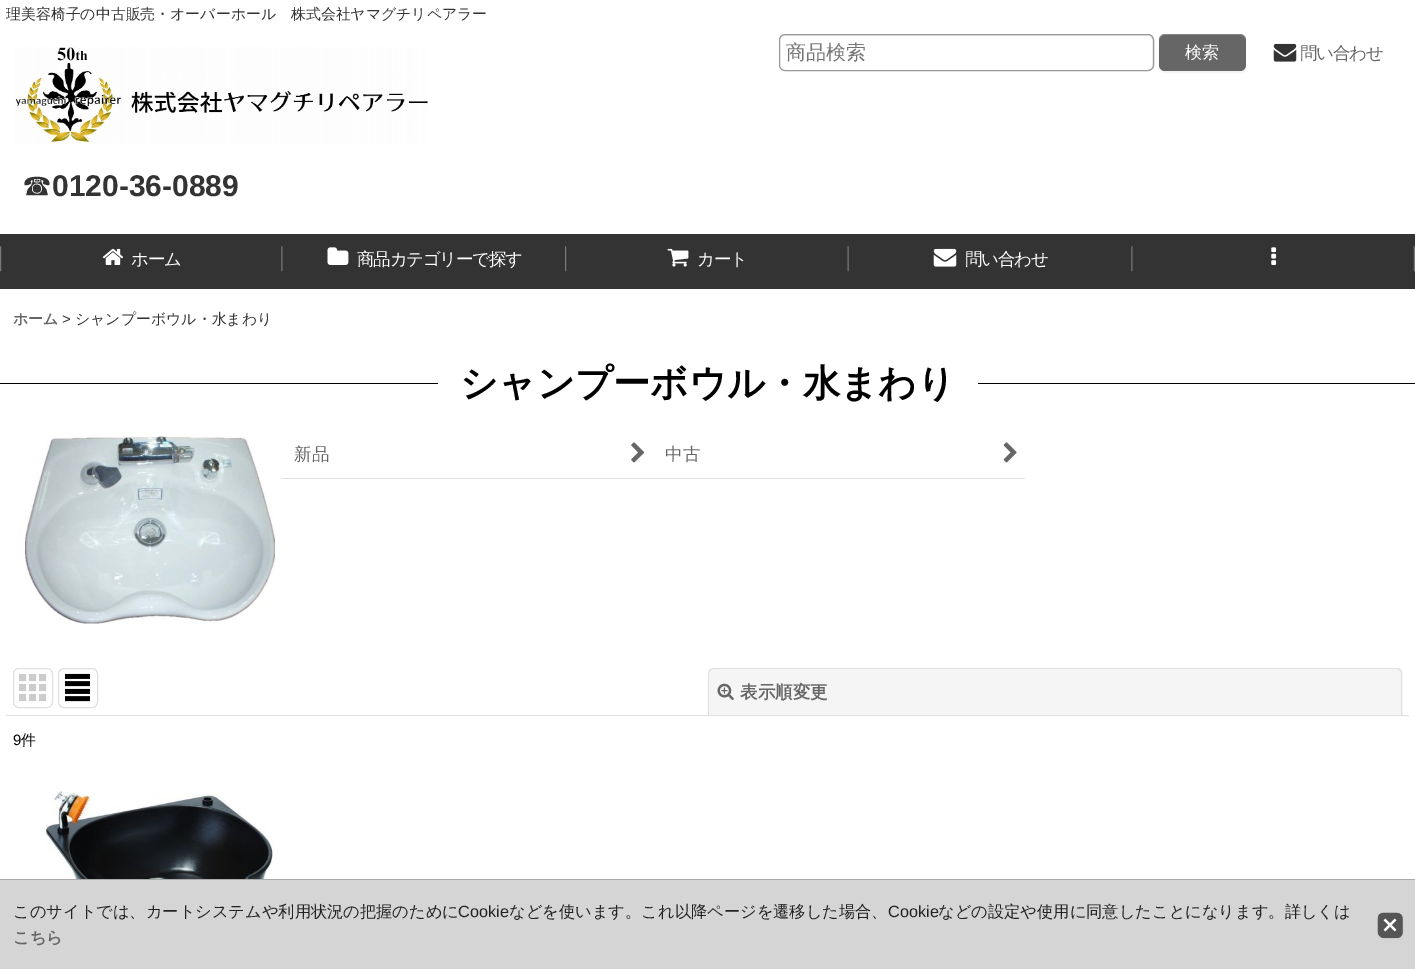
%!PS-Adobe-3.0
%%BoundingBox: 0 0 1415 969
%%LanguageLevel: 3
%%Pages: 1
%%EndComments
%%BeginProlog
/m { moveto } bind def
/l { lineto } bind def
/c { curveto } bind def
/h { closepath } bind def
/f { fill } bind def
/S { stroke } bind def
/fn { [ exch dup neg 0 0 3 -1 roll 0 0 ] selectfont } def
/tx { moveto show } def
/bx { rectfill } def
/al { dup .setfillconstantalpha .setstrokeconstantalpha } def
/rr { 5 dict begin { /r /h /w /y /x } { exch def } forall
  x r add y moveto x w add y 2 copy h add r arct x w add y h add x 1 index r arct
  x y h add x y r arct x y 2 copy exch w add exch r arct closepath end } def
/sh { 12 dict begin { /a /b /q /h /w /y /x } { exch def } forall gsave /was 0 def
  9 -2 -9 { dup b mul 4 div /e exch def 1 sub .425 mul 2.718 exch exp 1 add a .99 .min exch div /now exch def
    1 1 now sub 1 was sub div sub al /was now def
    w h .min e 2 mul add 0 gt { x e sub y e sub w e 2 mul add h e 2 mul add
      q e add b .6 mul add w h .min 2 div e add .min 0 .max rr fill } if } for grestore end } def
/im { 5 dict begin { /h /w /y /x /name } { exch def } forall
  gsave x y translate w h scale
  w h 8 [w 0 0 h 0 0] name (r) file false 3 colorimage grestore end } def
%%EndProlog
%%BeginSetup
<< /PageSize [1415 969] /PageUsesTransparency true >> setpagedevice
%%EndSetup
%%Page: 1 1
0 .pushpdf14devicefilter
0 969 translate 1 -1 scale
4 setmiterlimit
1 setgray
0 0 1415 969 bx
/WenQuanYiZenHei-Medium 14.9 fn
0.2 setgray
(理美容椅子の中古販売・オーバーホール　株式会社ヤマグチリペアラー) 6 19 tx
0.925 setgray
785 36 m 1148 36 l 1150 36 1152 38 1152 41 c 1152 66 l 1151 69 l 1152 68 1153 66 1153 65 c 1153 40 l 1153 37 1151 35 1148 35 c 785 35 l 782 35 780 37 780 40 c 780 41 l 780 38 782 36 785 36 c h f
0.6 setgray
779.5 34.5 374 36 5.5 rr S
/WenQuanYiZenHei-Medium 20 fn
0.459 setgray
(商品検索) 786 59 tx
0 setgray
1159 35 87 38 6 1 0.05 sh
0.4 setgray
1159 34 87 37 6 rr f
0.2 al
1 setgray
1165 35 m 1240 35 l 1243 35 1246 38 1246 41 c 1246 31 1234 34 1228 34 c 1178 34 l 1171 34 1159 31 1159 41 c 1159 38 1162 35 1165 35 c h f
/WenQuanYiZenHei-Medium 17 fn
1 al
(検索) 1185 58 tx
(image0.raw) 1273 43 24 19 im
/WenQuanYiZenHei-Medium 17.5 fn
0.4 setgray
1300 59 m -1.25 0 (問い合わせ) ashow
(image1.raw) 15 47 413 97 im
/WenQuanYiZenHei-Medium 30 fn
0.2 setgray
(☎) 22 196 tx
/LiberationSans-Bold 30 fn
(0120-36-0889) 52 196 tx
0 234 1415 55 bx
(image2.raw) 0 246 283 26 im
(image3.raw) 102 248 21 17 im
/WenQuanYiZenHei-Medium 17.5 fn
1 setgray
131 265 m -1.25 0 (ホーム) ashow
(image4.raw) 565 246 2 26 im
(image5.raw) 327 247 22 18 im
357 265 m -1.25 0 (商品カテゴリーで探す) ashow
(image6.raw) 847 246 2 26 im
(image7.raw) 667 248 22 19 im
697 265 m -1.25 0 (カート) ashow
(image8.raw) 1131 246 2 26 im
(image9.raw) 933 248 24 19 im
965 265 m -1.25 0 (問い合わせ) ashow
(image10.raw) 1413 246 2 26 im
(image11.raw) 1271 247 6 18 im
/WenQuanYiZenHei-Bold 14.9 fn
0.4 setgray
(ホーム) 13 324 tx
/LiberationSans-Regular 14.9 fn
0.2 setgray
(>) 62 324 tx
/WenQuanYiZenHei-Medium 14.9 fn
(シャンプーボウル・水まわり) 75 324 tx
0 setgray
0 383 1415 1 bx
1 setgray
438 383 540 1 bx
/WenQuanYiZenHei-Bold 37.4 fn
0 setgray
(シャンプーボウル・水まわり) 460 396 tx
(image12.raw) 25 436 250 188 im
0.878 0.875 0.89 setrgbcolor
281 478 744 1 bx
/WenQuanYiZenHei-Medium 17.5 fn
0.4 setgray
(新品) 294 460 tx
(image13.raw) 631 442 14 21 im
(中古) 665 460 tx
(image14.raw) 1003 442 14 21 im
0.878 0.875 0.89 setrgbcolor
6 715 1403 1 bx
13.5 668.5 39 39 5.5 rr S
(image15.raw) 19 674 28 28 im
58.5 668.5 39 39 5.5 rr S
(image16.raw) 65 673 25 29 im
0.961 setgray
714 668 m 1397 668 l 1400.5 668 1403 670.5 1403 674 c 1403 715 l 708 715 l 708 674 l 708 670.5 710.5 668 714 668 c h f
0.878 0.875 0.89 setrgbcolor
714 668 m 1396 668 l 1400 668 1402 670 1402 674 c 1402 715 l 708 715 l 708 674 l 708 670 710 668 714 668 c h 714 669 m 1396 669 l 1399 669 1401 671 1401 674 c 1401 715 l 709 715 l 709 674 l 709 671 711 669 714 669 c h eofill
(image17.raw) 717 683 17 17 im
/WenQuanYiZenHei-Bold 17.5 fn
0.4 setgray
(表示順変更) 740 698 tx
/LiberationSans-Regular 15 fn
0 setgray
(9) 13 745 tx
/WenQuanYiZenHei-Medium 15 fn
(件) 21 745 tx
(image18.raw) 38 791 238 88 im
0.835 setgray
0 880 1415 89 bx
0.667 setgray
0 879 1415 1 bx
/WenQuanYiZenHei-Medium 16.25 fn
0.133 setgray
(このサイトでは、カートシステムや利用状況の把握のために) 13 917 tx
/LiberationSans-Regular 16.25 fn
(Cookie) 458 917 tx
/WenQuanYiZenHei-Medium 16.25 fn
(などを使います。これ以降ページを遷移した場合、) 509 917 tx
/LiberationSans-Regular 16.25 fn
(Cookie) 888 917 tx
/WenQuanYiZenHei-Medium 16.25 fn
(などの設定や使用に同意したことになります。詳しくは) 938 917 tx
0 setgray
1378 914 25 25 6 1 0.05 sh
0.333 setgray
1378 913 25 25 6 rr f
0.2 al
1 setgray
1384 914 m 1396 914 l 1400 914 1402 917 1402 920 c 1402 932 l 1402 934 1401.5 935.5 1400.5 936.5 c 1403.5 934.5 1403 931 1403 927.5 c 1403 924.5 1404 918.5 1402 915.5 c 1399.5 912 1394.5 913 1390.5 913 c 1384.5 913 1378 912 1378 920 c 1378 917 1380 914 1384 914 c h f
1 al
(image19.raw) 1377 912 26 25 im
/WenQuanYiZenHei-Bold 16.25 fn
0.4 setgray
(こちら) 13 943 tx
.poppdf14devicefilter showpage
%%EOF
